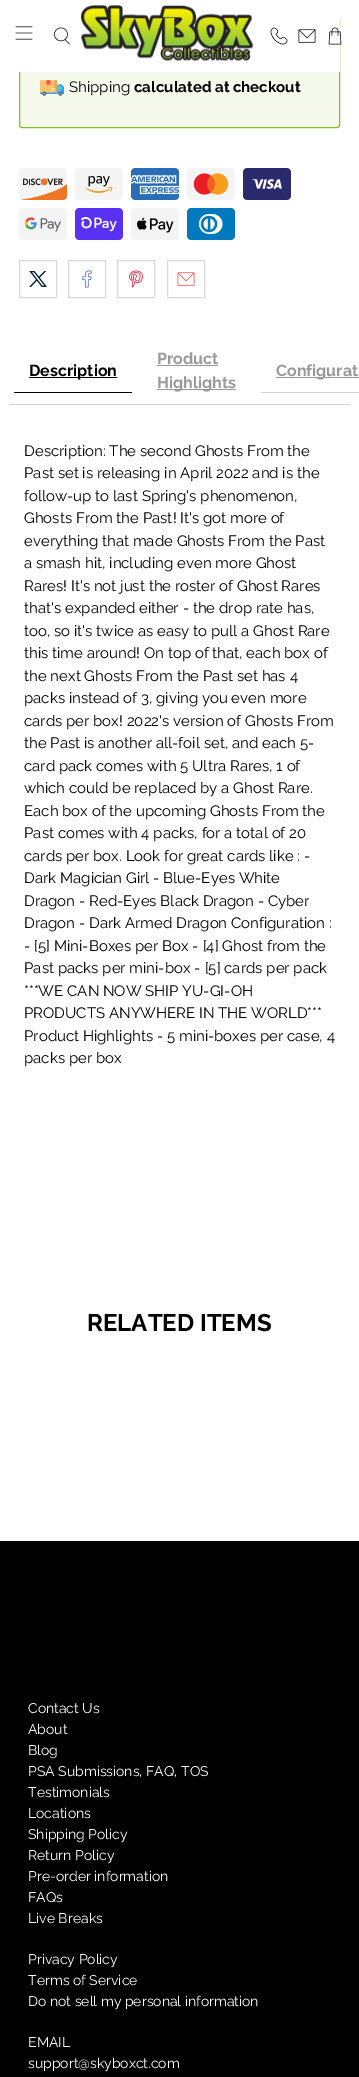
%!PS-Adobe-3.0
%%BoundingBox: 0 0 359 2077
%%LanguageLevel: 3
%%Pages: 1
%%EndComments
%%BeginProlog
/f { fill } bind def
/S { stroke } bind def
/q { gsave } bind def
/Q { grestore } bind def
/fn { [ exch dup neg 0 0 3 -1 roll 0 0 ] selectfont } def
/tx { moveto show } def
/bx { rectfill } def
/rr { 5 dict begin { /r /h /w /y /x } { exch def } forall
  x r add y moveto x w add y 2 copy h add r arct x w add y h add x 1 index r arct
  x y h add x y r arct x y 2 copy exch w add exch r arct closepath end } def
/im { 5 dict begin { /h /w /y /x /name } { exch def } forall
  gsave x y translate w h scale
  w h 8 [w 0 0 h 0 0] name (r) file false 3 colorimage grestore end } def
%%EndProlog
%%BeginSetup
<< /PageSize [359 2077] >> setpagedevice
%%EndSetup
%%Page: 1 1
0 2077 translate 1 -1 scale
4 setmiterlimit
1 setgray
0 0 359 2077 bx
0.961 0.98 0.929 setrgbcolor
19.5 17.5 320 110 2.5 rr q f Q
0.486 0.757 0.129 setrgbcolor
S
1 setgray
19 17 321 55 bx
(image0.raw) 15 26 18 14 im
(image1.raw) 54 27 16 18 im
(image2.raw) 81 5 173 56 im
(image3.raw) 270 27 18 18 im
(image4.raw) 298 29 18 14 im
(image5.raw) 328 27 14 18 im
(image6.raw) 40 80 24 16 im
/Raleway-Regular 15 fn
0 setgray
(Shipping) 69 92 tx
/Raleway-Bold 15 fn
(calculated at checkout) 134 92 tx
(image7.raw) 19 168 48 32 im
(image8.raw) 75 168 48 32 im
(image9.raw) 131 168 48 32 im
(image10.raw) 187 168 48 32 im
(image11.raw) 243 168 48 32 im
(image12.raw) 19 208 48 32 im
(image13.raw) 75 208 48 32 im
(image14.raw) 131 208 48 32 im
(image15.raw) 187 208 48 32 im
0.859 setgray
19.5 260.5 37 37 rectstroke
(image16.raw) 29 271 18 16 im
68.5 260.5 37 37 rectstroke
(image17.raw) 82 270 10 18 im
117.5 260.5 37 37 rectstroke
(image18.raw) 129 270 14 18 im
167.5 260.5 37 37 rectstroke
(image19.raw) 177 272 18 14 im
0.827 setgray
9 404 341 1 bx
0 setgray
14 392 118 1 bx
29 377 88 1 bx
/Raleway-Bold 16 fn
(Description) 29 376 tx
0.6 setgray
(Product) 157 364 tx
157 365 61 1 bx
157 389 79 1 bx
(Highlights) 157 388 tx
0.827 setgray
261 392 98 1 bx
0.6 setgray
276 377 83 1 bx
(Configurat) 276 376 tx
/Raleway-Regular 15 fn
0 setgray
(Description: The second Ghosts From the) 24 456 tx
(Past set is releasing in April 2022 and is the) 24 478 tx
(follow-up to last Spring's phenomenon,) 24 501 tx
(Ghosts From the Past! It's got more of) 24 523 tx
(everything that made Ghosts From the Past) 24 546 tx
(a smash hit, including even more Ghost) 24 568 tx
(Rares! It's not just the roster of Ghost Rares) 24 591 tx
(that's expanded either - the drop rate has,) 24 613 tx
(too, so it's twice as easy to pull a Ghost Rare) 24 636 tx
(this time around! On top of that, each box of) 24 658 tx
(the next Ghosts From the Past set has 4) 24 681 tx
(packs instead of 3, giving you even more) 24 703 tx
(cards per box! 2022's version of Ghosts From) 24 726 tx
(the Past is another all-foil set, and each 5-) 24 748 tx
(card pack comes with 5 Ultra Rares, 1 of) 24 771 tx
(which could be replaced by a Ghost Rare.) 24 793 tx
(Each box of the upcoming Ghosts From the) 24 816 tx
(Past comes with 4 packs, for a total of 20) 24 838 tx
(cards per box. Look for great cards like : -) 24 861 tx
(Dark Magician Girl - Blue-Eyes White) 24 883 tx
(Dragon - Red-Eyes Black Dragon - Cyber) 24 906 tx
(Dragon - Dark Armed Dragon Configuration :) 24 928 tx
(- [5] Mini-Boxes per Box - [4] Ghost from the) 24 951 tx
(Past packs per mini-box - [5] cards per pack) 24 973 tx
(***WE CAN NOW SHIP YU-GI-OH) 24 996 tx
(PRODUCTS ANYWHERE IN THE WORLD***) 24 1018 tx
(Product Highlights - 5 mini-boxes per case, 4) 24 1041 tx
(packs per box) 24 1063 tx
/Raleway-Bold 24 fn
(RELATED ITEMS) 87 1331 tx
0 1541 359 536 bx
/Raleway-Regular 14 fn
1 setgray
(Contact Us) 28 1713 tx
(About) 28 1734 tx
(Blog) 28 1755 tx
(PSA Submissions, FAQ, TOS) 28 1776 tx
(Testimonials) 28 1797 tx
(Locations) 28 1818 tx
(Shipping Policy) 28 1839 tx
(Return Policy) 28 1860 tx
(Pre-order information) 28 1881 tx
(FAQs) 28 1902 tx
(Live Breaks) 28 1923 tx
(Privacy Policy) 28 1964 tx
(Terms of Service) 28 1985 tx
(Do not sell my personal information) 28 2006 tx
(EMAIL) 28 2047 tx
(support@skyboxct.com) 28 2068 tx
showpage
%%EOF
